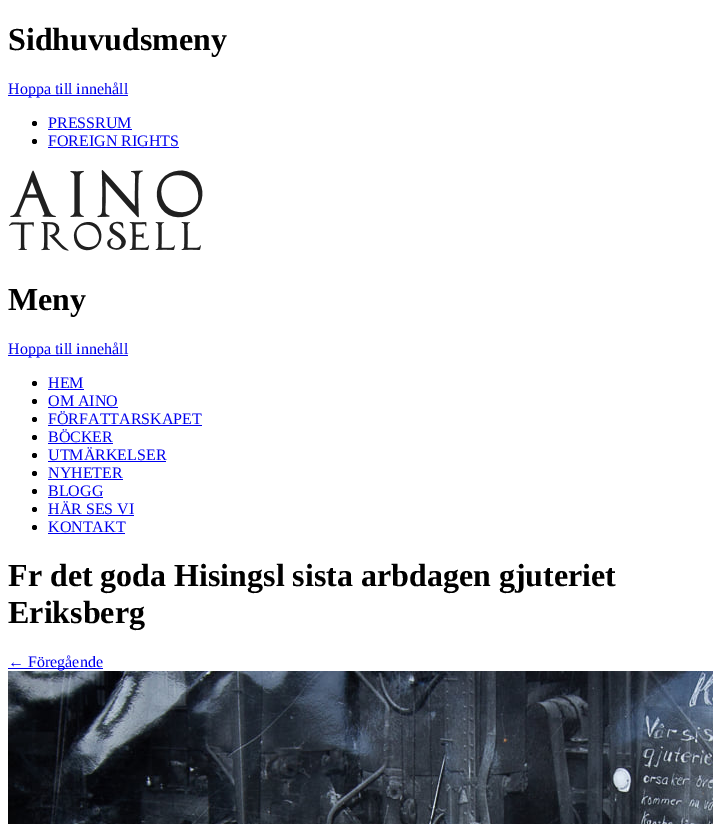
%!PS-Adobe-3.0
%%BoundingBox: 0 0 713 824
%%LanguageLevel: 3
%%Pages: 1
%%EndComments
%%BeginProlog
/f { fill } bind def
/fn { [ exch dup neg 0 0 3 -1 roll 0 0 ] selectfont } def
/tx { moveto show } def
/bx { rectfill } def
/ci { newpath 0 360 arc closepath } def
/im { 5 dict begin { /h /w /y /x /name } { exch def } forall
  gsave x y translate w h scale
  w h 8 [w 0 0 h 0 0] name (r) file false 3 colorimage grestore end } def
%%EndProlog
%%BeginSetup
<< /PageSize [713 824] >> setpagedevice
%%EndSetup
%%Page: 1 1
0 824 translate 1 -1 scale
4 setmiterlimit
1 setgray
0 0 713 824 bx
/LiberationSerif-Bold 32 fn
0 setgray
(Sidhuvudsmeny) 8 50 tx
0 0 0.933 setrgbcolor
8 95 120 1 bx
/LiberationSerif-Regular 16 fn
(Hoppa till innehåll) 8 94 tx
0 setgray
34.5 123.5 2.5 ci f
0 0 0.933 setrgbcolor
(PRESSRUM) 48 128 tx
48 129 84 1 bx
0 setgray
34.5 141.5 2.5 ci f
0 0 0.933 setrgbcolor
(FOREIGN RIGHTS) 48 146 tx
48 147 131 1 bx
(image0.raw) 8 170 195 81 im
/LiberationSerif-Bold 32 fn
0 setgray
(Meny) 8 310 tx
0 0 0.933 setrgbcolor
8 355 120 1 bx
/LiberationSerif-Regular 16 fn
(Hoppa till innehåll) 8 354 tx
0 setgray
34.5 383.5 2.5 ci f
0 0 0.933 setrgbcolor
(HEM) 48 388 tx
48 389 36 1 bx
0 setgray
34.5 401.5 2.5 ci f
0 0 0.933 setrgbcolor
(OM AINO) 48 406 tx
48 407 70 1 bx
0 setgray
34.5 419.5 2.5 ci f
0 0 0.933 setrgbcolor
(FÖRFATTARSKAPET) 48 424 tx
48 425 154 1 bx
0 setgray
34.5 437.5 2.5 ci f
0 0 0.933 setrgbcolor
(BÖCKER) 48 442 tx
48 443 65 1 bx
0 setgray
34.5 455.5 2.5 ci f
0 0 0.933 setrgbcolor
(UTMÄRKELSER) 48 460 tx
48 461 118 1 bx
0 setgray
34.5 473.5 2.5 ci f
0 0 0.933 setrgbcolor
(NYHETER) 48 478 tx
48 479 75 1 bx
0 setgray
34.5 491.5 2.5 ci f
0 0 0.933 setrgbcolor
(BLOGG) 48 496 tx
48 497 55 1 bx
0 setgray
34.5 509.5 2.5 ci f
0 0 0.933 setrgbcolor
(HÄR SES VI) 48 514 tx
48 515 86 1 bx
0 setgray
34.5 527.5 2.5 ci f
0 0 0.933 setrgbcolor
(KONTAKT) 48 532 tx
48 533 77 1 bx
/LiberationSerif-Bold 32 fn
0 setgray
(Fr det goda Hisingsl sista arbdagen gjuteriet) 8 586 tx
(Eriksberg) 8 623 tx
0 0 0.933 setrgbcolor
8 668 95 1 bx
/LiberationSerif-Regular 16 fn
(← Föregående) 8 667 tx
(image1.raw) 8 671 705 153 im
showpage
%%EOF
